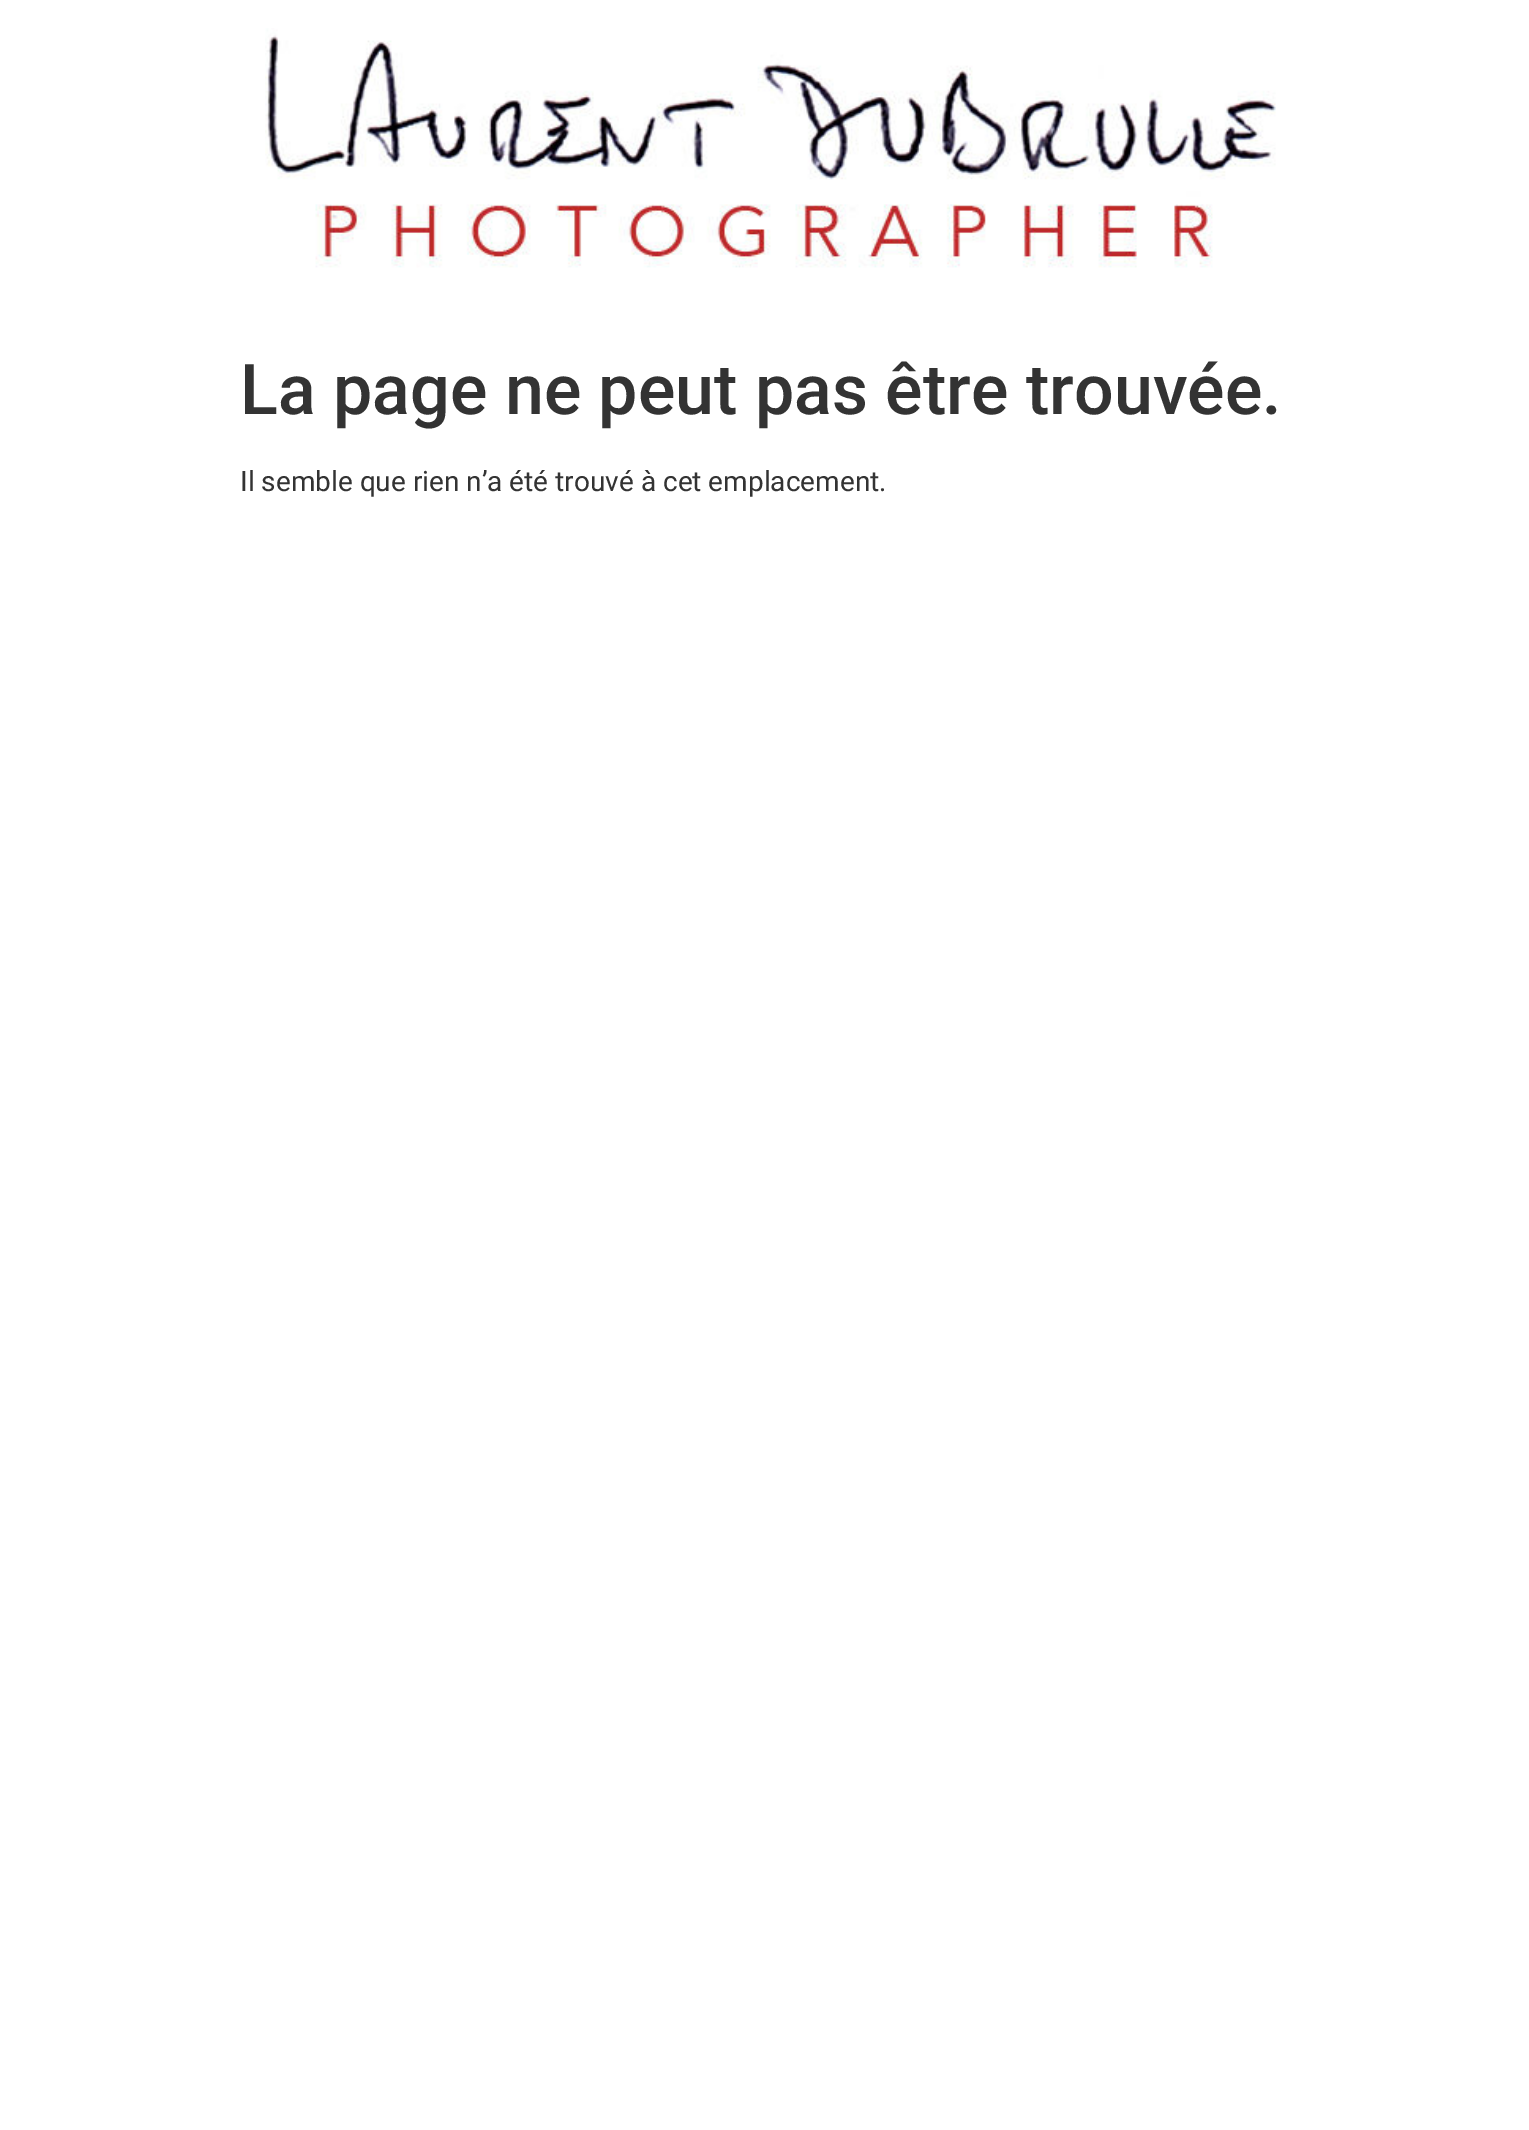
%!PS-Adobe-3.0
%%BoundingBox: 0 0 1529 2130
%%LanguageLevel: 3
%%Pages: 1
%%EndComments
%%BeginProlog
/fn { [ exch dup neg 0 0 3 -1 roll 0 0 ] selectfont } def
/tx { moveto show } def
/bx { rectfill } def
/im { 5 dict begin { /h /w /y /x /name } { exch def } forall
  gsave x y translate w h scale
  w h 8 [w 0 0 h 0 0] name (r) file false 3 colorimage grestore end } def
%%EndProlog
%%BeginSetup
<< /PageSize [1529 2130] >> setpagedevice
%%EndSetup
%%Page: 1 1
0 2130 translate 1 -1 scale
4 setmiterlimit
1 setgray
0 0 1529 2130 bx
(image0.raw) 265 28 1011 240 im
/Roboto-Medium 70 fn
0.2 setgray
(La page ne peut pas être trouvée.) 240 414 tx
/Roboto-Regular 28 fn
(Il semble que rien n’a été trouvé à cet emplacement.) 240 491 tx
showpage
%%EOF
